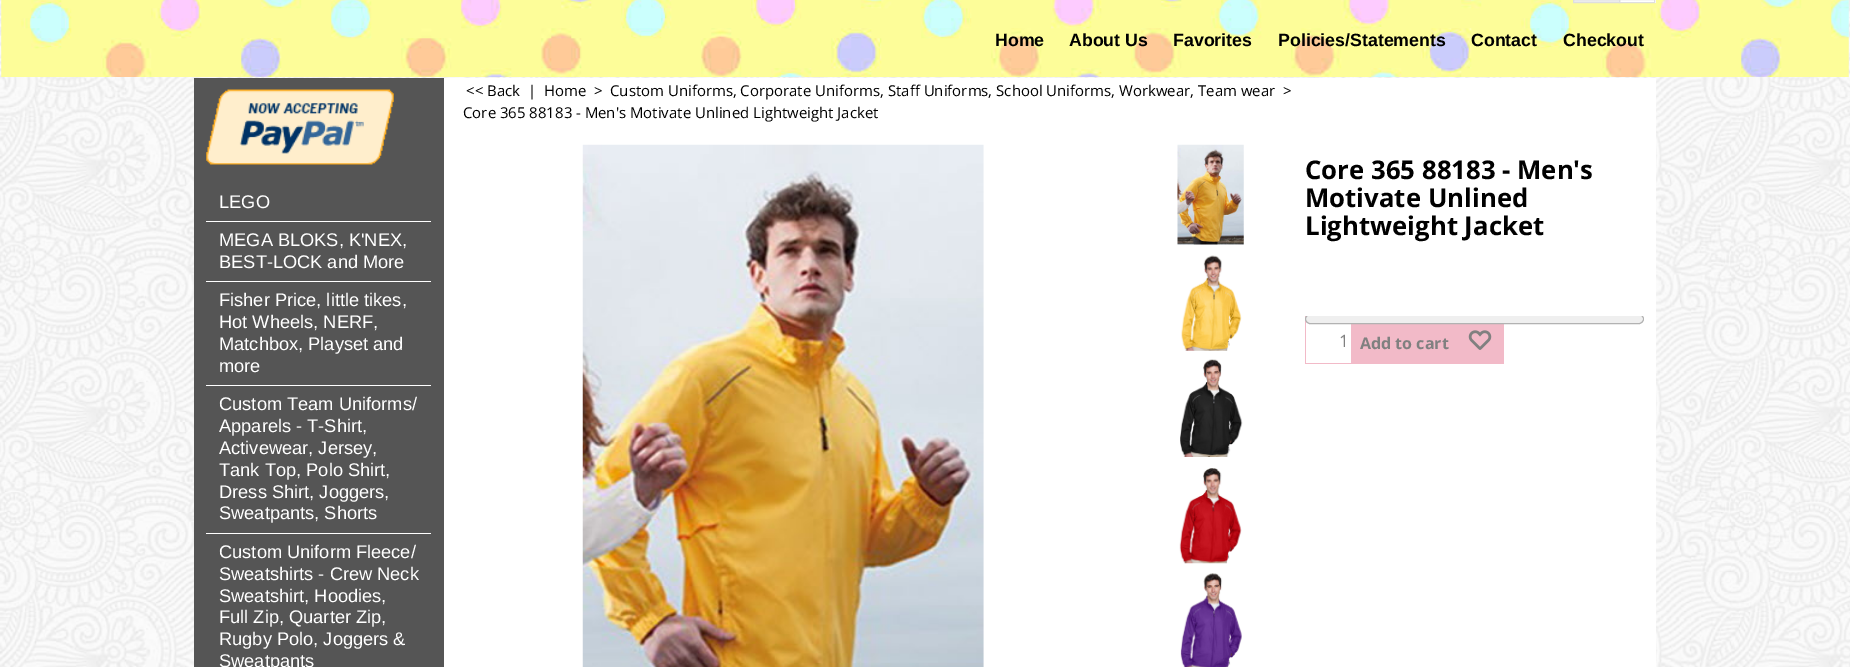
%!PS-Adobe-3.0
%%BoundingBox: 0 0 1850 667
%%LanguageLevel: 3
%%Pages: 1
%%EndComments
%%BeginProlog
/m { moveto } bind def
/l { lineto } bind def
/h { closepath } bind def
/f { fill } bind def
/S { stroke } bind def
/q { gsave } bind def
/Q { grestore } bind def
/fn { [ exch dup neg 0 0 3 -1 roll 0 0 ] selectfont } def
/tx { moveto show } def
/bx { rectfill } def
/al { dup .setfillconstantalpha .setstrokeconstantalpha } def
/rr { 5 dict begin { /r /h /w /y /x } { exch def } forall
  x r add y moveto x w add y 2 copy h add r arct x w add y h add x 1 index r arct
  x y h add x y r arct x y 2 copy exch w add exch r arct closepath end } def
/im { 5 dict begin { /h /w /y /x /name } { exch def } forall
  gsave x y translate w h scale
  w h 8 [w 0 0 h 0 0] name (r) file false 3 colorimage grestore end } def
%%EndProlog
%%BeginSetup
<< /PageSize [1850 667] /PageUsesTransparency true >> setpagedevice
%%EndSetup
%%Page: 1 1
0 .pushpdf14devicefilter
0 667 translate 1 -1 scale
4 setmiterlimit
1 setgray
0 0 1850 667 bx
(image0.raw) 0 0 1850 667 im
(image1.raw) 1 0 1848 77 im
1620 0 36 3 bx
0.922 setgray
1573.5 -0.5 m 1619.5 -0.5 l 1619.5 2.5 l 1573.5 2.5 l h q f Q
0.871 setgray
S
1619.5 -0.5 35 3 rectstroke
/LiberationSans-Bold 17.75 fn
0 setgray
(Home) 995 46 tx
(About Us) 1069 46 tx
(Favorites) 1173 46 tx
(Policies/Statements) 1278 46 tx
(Contact) 1471 46 tx
(Checkout) 1563 46 tx
1 setgray
444 78 1212 589 bx
0.333 setgray
194 78 250 589 bx
(image2.raw) 206 89 188 76 im
1 setgray
206 221 225 1 bx
/LiberationSans-Regular 18.25 fn
(LEGO) 219 208 tx
206 281 225 1 bx
(MEGA BLOKS, K'NEX,) 219 246 tx
(BEST-LOCK and More) 219 268 tx
206 385 225 1 bx
(Fisher Price, little tikes,) 219 306 tx
(Hot Wheels, NERF,) 219 328 tx
(Matchbox, Playset and) 219 350 tx
(more) 219 372 tx
206 533 225 1 bx
(Custom Team Uniforms/) 219 410 tx
(Apparels - T-Shirt,) 219 432 tx
(Activewear, Jersey,) 219 454 tx
(Tank Top, Polo Shirt,) 219 476 tx
(Dress Shirt, Joggers,) 219 498 tx
(Sweatpants, Shorts) 219 519 tx
(Custom Uniform Fleece/) 219 558 tx
(Sweatshirts - Crew Neck) 219 580 tx
(Sweatshirt, Hoodies,) 219 602 tx
(Full Zip, Quarter Zip,) 219 623 tx
(Rugby Polo, Joggers &) 219 645 tx
(Sweatpants) 219 667 tx
/OpenSans-Regular 14.95 fn
0 setgray
(<< Back) 466 96 tx
(|) 528 96 tx
(Home) 544 96 tx
(>) 594 96 tx
(Custom Uniforms, Corporate Uniforms, Staff Uniforms, School Uniforms, Workwear, Team wear) 610 96 tx
(>) 1283 96 tx
(Core 365 88183 - Men's Motivate Unlined Lightweight Jacket) 463 118 tx
(image3.raw) 582 144 402 523 im
(image4.raw) 1177 144 67 101 im
(image5.raw) 1181 255 61 96 im
(image6.raw) 1180 359 63 98 im
(image7.raw) 1179 468 63 96 im
(image8.raw) 1180 573 62 94 im
/OpenSans-Bold 25.75 fn
(Core 365 88183 - Men's) 1305 179 tx
(Motivate Unlined) 1305 207 tx
(Lightweight Jacket) 1305 235 tx
0.894 0.455 0.565 setrgbcolor
1305 316 48 48 bx
1 setgray
1306 322 45 41 bx
/OpenSans-Regular 17 fn
0 setgray
(1) 1339 347 tx
0.894 0.455 0.565 setrgbcolor
1353 324 151 40 bx
/OpenSans-Bold 16 fn
0 setgray
(Add to cart) 1360 349 tx
(image9.raw) 1468 330 24 20 im
0.5 al
1 setgray
1305 316 199 48 bx
q
1305 316 339 48 rectclip
1 al
0.937 setgray
1305.5 314.5 338 9 4.5 rr q f Q
0.698 setgray
S
Q
.poppdf14devicefilter showpage
%%EOF
